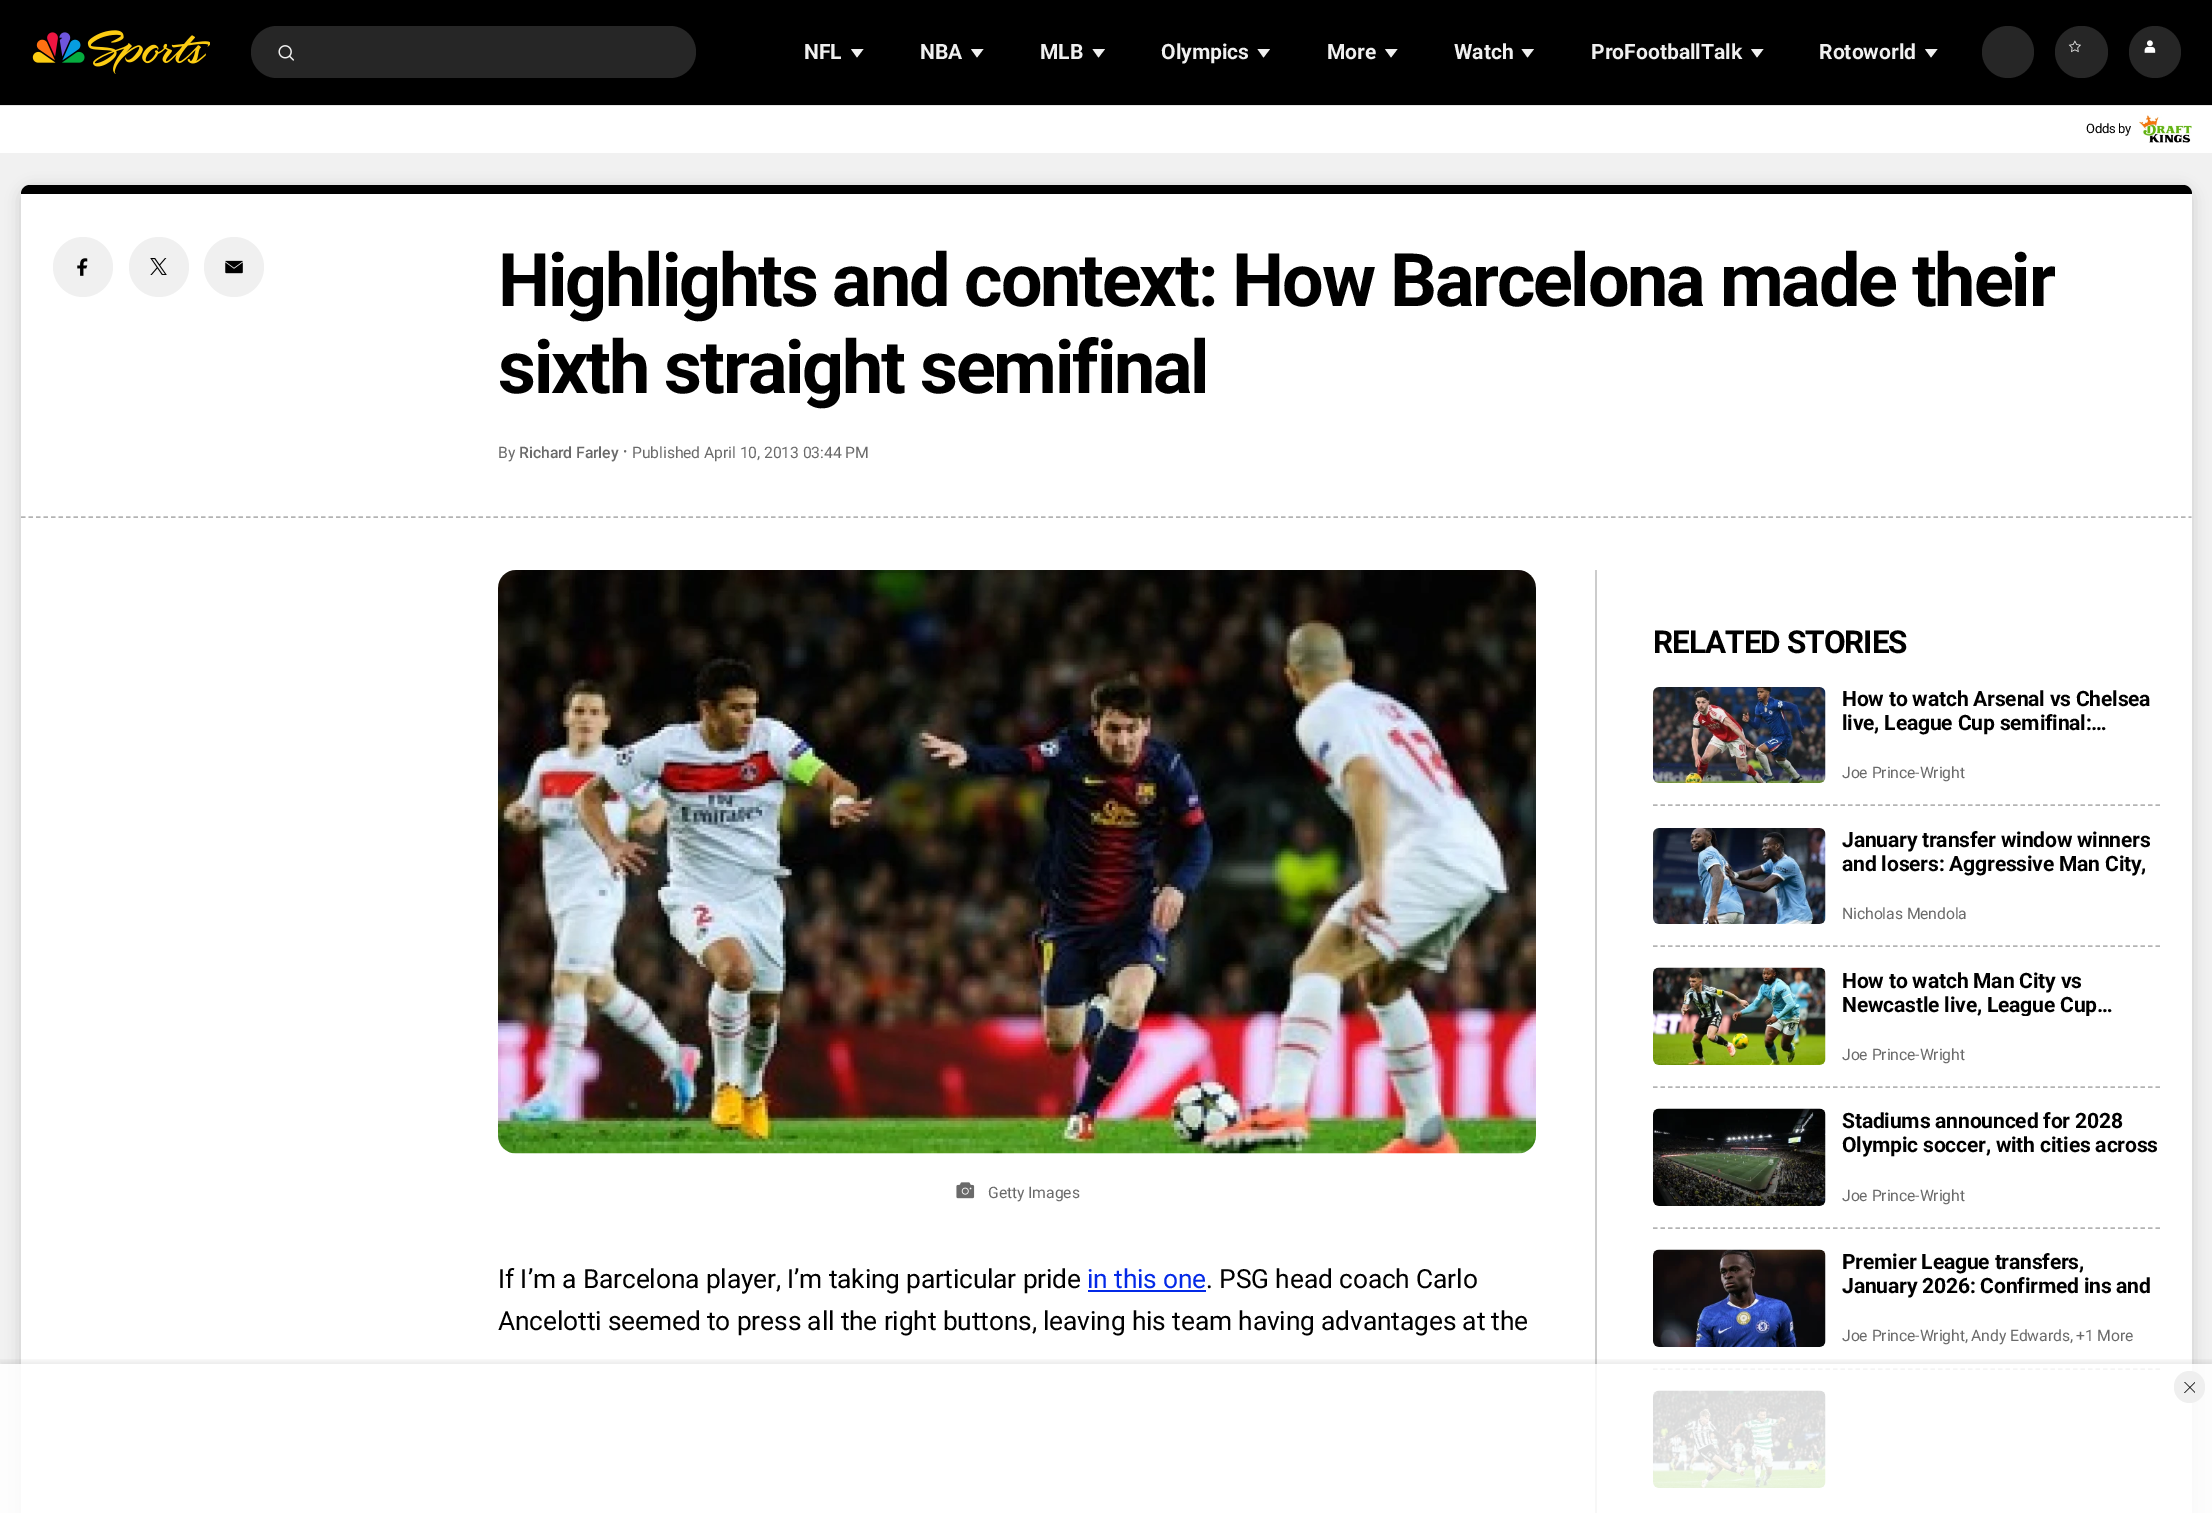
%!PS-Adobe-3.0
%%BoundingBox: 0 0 2212 1513
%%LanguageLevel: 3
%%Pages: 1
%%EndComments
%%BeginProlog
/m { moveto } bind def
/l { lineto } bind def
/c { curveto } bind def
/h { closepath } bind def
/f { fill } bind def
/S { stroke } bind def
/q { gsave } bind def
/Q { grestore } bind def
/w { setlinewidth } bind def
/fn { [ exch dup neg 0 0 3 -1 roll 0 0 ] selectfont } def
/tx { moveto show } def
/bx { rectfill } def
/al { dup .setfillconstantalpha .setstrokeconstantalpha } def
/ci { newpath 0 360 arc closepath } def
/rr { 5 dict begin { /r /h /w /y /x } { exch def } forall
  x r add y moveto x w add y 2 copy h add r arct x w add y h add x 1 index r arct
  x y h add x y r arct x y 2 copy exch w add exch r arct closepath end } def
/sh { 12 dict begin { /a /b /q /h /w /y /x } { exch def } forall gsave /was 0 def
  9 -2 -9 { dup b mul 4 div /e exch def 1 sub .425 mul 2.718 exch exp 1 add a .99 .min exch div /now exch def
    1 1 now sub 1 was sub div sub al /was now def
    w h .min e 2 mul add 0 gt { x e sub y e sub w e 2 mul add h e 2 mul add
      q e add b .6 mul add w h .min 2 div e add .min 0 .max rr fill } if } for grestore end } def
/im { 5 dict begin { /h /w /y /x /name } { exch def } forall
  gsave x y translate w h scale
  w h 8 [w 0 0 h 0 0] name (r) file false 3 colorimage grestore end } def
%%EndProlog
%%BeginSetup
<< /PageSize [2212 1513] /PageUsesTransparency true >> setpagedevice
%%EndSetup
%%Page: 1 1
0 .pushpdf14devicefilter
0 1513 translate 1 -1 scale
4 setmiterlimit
0.945 setgray
0 0 2212 1513 bx
0 setgray
0 0 2212 105 bx
(image0.raw) 32 30 178 44 im
0.149 setgray
251 26 445 52 26 rr f
(image1.raw) 278 45 16 16 im
/Roboto-Bold 21.1 fn
0.941 setgray
(NFL) 804 59 tx
857 57.5 m 851 49 l 863.5 49 l h f
(NBA) 920 59 tx
977 57.5 m 971 49 l 983.5 49 l h f
(MLB) 1040 59 tx
1098.5 57.5 m 1092.5 49 l 1105 49 l h f
(Olympics) 1161 59 tx
1263.5 57.5 m 1257.5 49 l 1270 49 l h f
(More) 1327 59 tx
1391 57.5 m 1385 49 l 1397.5 49 l h f
(Watch) 1454 59 tx
1527.5 57.5 m 1521.5 49 l 1534 49 l h f
(ProFootballTalk) 1591 59 tx
1757 57.5 m 1751 49 l 1763.5 49 l h f
(Rotoworld) 1819 59 tx
1931 57.5 m 1925 49 l 1937.5 49 l h f
0.149 setgray
2008 52 26 ci f
2055 26 53 52 26 rr f
(image2.raw) 2068 40 13 13 im
2155 52 26 ci f
(image3.raw) 2144 40 12 13 im
1 setgray
0 106 2212 47 bx
0.902 setgray
0 105 2212 1 bx
/Roboto-Regular 13 fn
0 setgray
2086 133 m -0.25 0 (Odds by) ashow
(image4.raw) 2139 115 53 28 im
21 188 2171 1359 11 7.5 0.15 sh
1 setgray
21 185 2171 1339 11 rr f
0 setgray
30 185 m 2183 185 l 2188 185 2192 189 2192 194 c 21 194 l 21 189 25 185 30 185 c h f
0.702 setgray
1.5 w
[4.5 3] 0 setdash
21 517 m 2191.5 517 l S
0.941 setgray
83 267 30 ci f
(image5.raw) 77 258 11 18 im
159 267 30 ci f
(image6.raw) 150 258 17 17 im
234 267 30 ci f
(image7.raw) 225 260 18 14 im
/Roboto-Bold 73.75 fn
0 setgray
498 306 m -2.2 0 (Highlights and context: How Barcelona made their) ashow
498 393 m -2.2 0 (sixth straight semifinal) ashow
/Roboto-Regular 15.75 fn
0.416 setgray
498 458 m -0.1 0 (By) ashow
/Roboto-Medium 15.75 fn
519 458 m -0.1 0 (Richard Farley) ashow
625.1 451.3 1.1 ci f
/Roboto-Regular 15.75 fn
632 458 m -0.1 0 (Published April 10, 2013 03:44 PM) ashow
(image8.raw) 498 570 1038 584 im
(image9.raw) 956 1182 19 17 im
988 1198 m -0.1 0 (Getty Images) ashow
/Roboto-Regular 26.35 fn
0 setgray
498 1288 m -0.13 0 (If I’m a Barcelona player, I’m taking particular pride) ashow
0.012 0.161 0.906 setrgbcolor
1087 1288 m -0.13 0 (in this one) ashow
1088 1290 118 2 bx
0 setgray
1206 1288 m -0.13 0 (. PSG head coach Carlo) ashow
498 1330 m -0.13 0 (Ancelotti seemed to press all the right buttons, leaving his team having advantages at the) ashow
0.8 setgray
1595 570 2 943 bx
/Roboto-Bold 31.5 fn
0 setgray
1653 653 m -1 0 (RELATED STORIES) ashow
(image10.raw) 1653 687 173 96 im
/Roboto-Bold 21.1 fn
1842 706 m -0.2 0 (How to watch Arsenal vs Chelsea) ashow
1842 730 m -0.2 0 (live, League Cup semifinal:…) ashow
/Roboto-Regular 15.75 fn
0.416 setgray
1842 778 m -0.1 0 (Joe Prince-Wright) ashow
0.702 setgray
1653 805 m 2160 805 l S
(image11.raw) 1653 828 173 96 im
/Roboto-Bold 21.1 fn
0 setgray
1842 847 m -0.2 0 (January transfer window winners) ashow
1842 871 m -0.2 0 (and losers: Aggressive Man City,) ashow
/Roboto-Regular 15.75 fn
0.416 setgray
1842 919 m -0.1 0 (Nicholas Mendola) ashow
0.702 setgray
1653 946 m 2160 946 l S
(image12.raw) 1653 967 173 98 im
/Roboto-Bold 21.1 fn
0 setgray
1842 988 m -0.2 0 (How to watch Man City vs) ashow
q
1842 968 318 48 rectclip
1842 1012 m -0.2 0 (Newcastle live, League Cup…) ashow
Q
/Roboto-Regular 15.75 fn
0.416 setgray
1842 1060 m -0.1 0 (Joe Prince-Wright) ashow
0.702 setgray
1653 1087 m 2160 1087 l S
(image13.raw) 1653 1108 173 98 im
/Roboto-Bold 21.1 fn
0 setgray
1842 1128 m -0.2 0 (Stadiums announced for 2028) ashow
1842 1152 m -0.2 0 (Olympic soccer, with cities across) ashow
/Roboto-Regular 15.75 fn
0.416 setgray
1842 1201 m -0.1 0 (Joe Prince-Wright) ashow
0.702 setgray
1653 1228 m 2160 1228 l S
(image14.raw) 1653 1249 173 98 im
/Roboto-Bold 21.1 fn
0 setgray
1842 1269 m -0.2 0 (Premier League transfers,) ashow
1842 1293 m -0.2 0 (January 2026: Confirmed ins and) ashow
/Roboto-Regular 15.75 fn
0.416 setgray
1842 1341 m -0.1 0 (Joe Prince-Wright,) ashow
1971 1341 m -0.1 0 (Andy Edwards,) ashow
2076 1341 m -0.1 0 (+1 More) ashow
0.702 setgray
1653 1369 m 2160 1369 l S
(image15.raw) 1653 1390 173 98 im
q
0 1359 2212 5 rectclip
0 setgray
0 1361 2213 150 0 3 0.08 sh
Q
0.85 al
1 setgray
0 1364 2212 149 bx
1 al
0.937 setgray
2174 1371 31 32 15.5 rr f
(image16.raw) 2184 1382 11 11 im
.poppdf14devicefilter showpage
%%EOF
